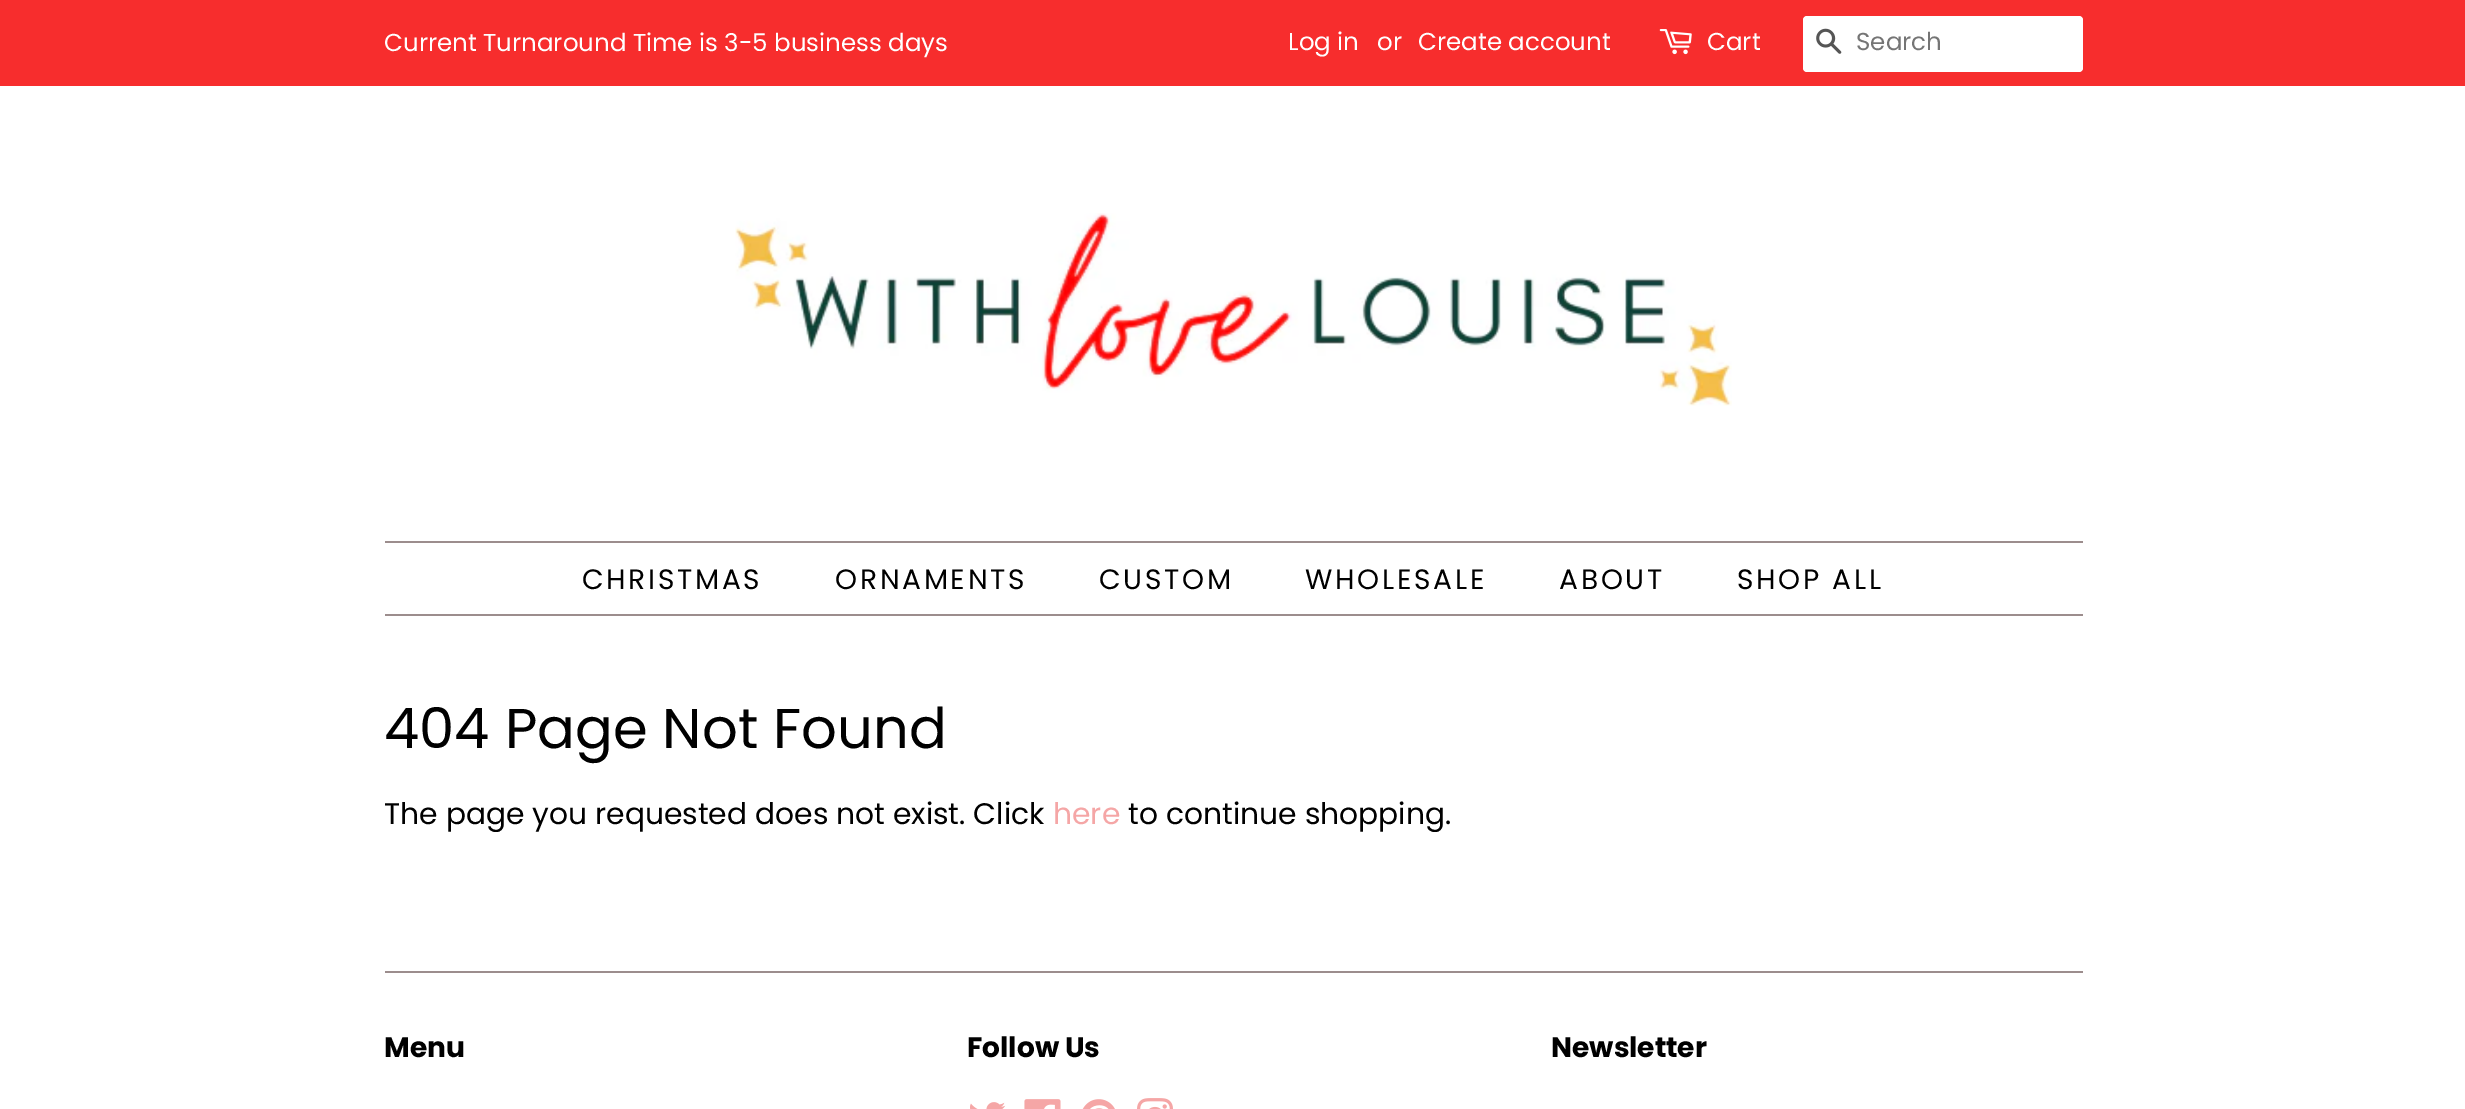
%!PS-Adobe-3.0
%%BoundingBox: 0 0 2465 1109
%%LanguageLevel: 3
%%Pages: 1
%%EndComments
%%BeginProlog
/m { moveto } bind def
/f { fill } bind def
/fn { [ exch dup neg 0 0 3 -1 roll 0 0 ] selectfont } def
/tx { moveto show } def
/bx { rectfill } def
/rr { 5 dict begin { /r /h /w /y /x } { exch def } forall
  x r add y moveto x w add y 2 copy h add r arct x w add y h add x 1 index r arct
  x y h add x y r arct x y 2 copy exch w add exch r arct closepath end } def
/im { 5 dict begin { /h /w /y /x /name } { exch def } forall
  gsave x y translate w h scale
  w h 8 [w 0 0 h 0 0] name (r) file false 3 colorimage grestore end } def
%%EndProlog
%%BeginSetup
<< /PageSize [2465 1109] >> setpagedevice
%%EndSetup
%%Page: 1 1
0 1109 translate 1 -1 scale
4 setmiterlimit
1 setgray
0 0 2465 1109 bx
0.969 0.176 0.176 setrgbcolor
0 0 2465 86 bx
/Poppins-Regular 24.5 fn
1 setgray
(Current Turnaround Time is 3-5 business days) 384 51 tx
(Log in) 1288 50 tx
(or) 1377 50 tx
(Create account) 1418 50 tx
(image0.raw) 1659 29 33 26 im
(Cart) 1707 50 tx
1803 16 280 56 4 rr f
(image1.raw) 1816 28 26 26 im
0.459 setgray
(Search) 1856 50 tx
(image2.raw) 735 213 997 193 im
0.612 0.553 0.553 setrgbcolor
385 541 1698 2 bx
385 614 1698 2 bx
/Poppins-Regular 28 fn
0 setgray
582 589 m 2.75 0 (CHRISTMAS) ashow
835 589 m 2.75 0 (ORNAMENTS) ashow
1099 589 m 2.75 0 (CUSTOM) ashow
1305 589 m 2.75 0 (WHOLESALE) ashow
1559 589 m 2.75 0 (ABOUT) ashow
1737 589 m 2.75 0 (SHOP ALL) ashow
/Poppins-Regular 56 fn
(404 Page Not Found) 384 748 tx
/Poppins-Regular 29.75 fn
(The page you requested does not exist. Click) 384 824 tx
0.961 0.651 0.651 setrgbcolor
(here) 1053 824 tx
0 setgray
(to continue shopping.) 1128 824 tx
0.612 0.553 0.553 setrgbcolor
385 971 1698 2 bx
/Poppins-Bold 28 fn
0 setgray
(Menu) 384 1057 tx
(Follow Us) 967 1057 tx
(image3.raw) 970 1102 36 7 im
(image4.raw) 1024 1099 37 10 im
(image5.raw) 1082 1099 33 10 im
(image6.raw) 1137 1098 36 11 im
(Newsletter) 1551 1057 tx
showpage
%%EOF
